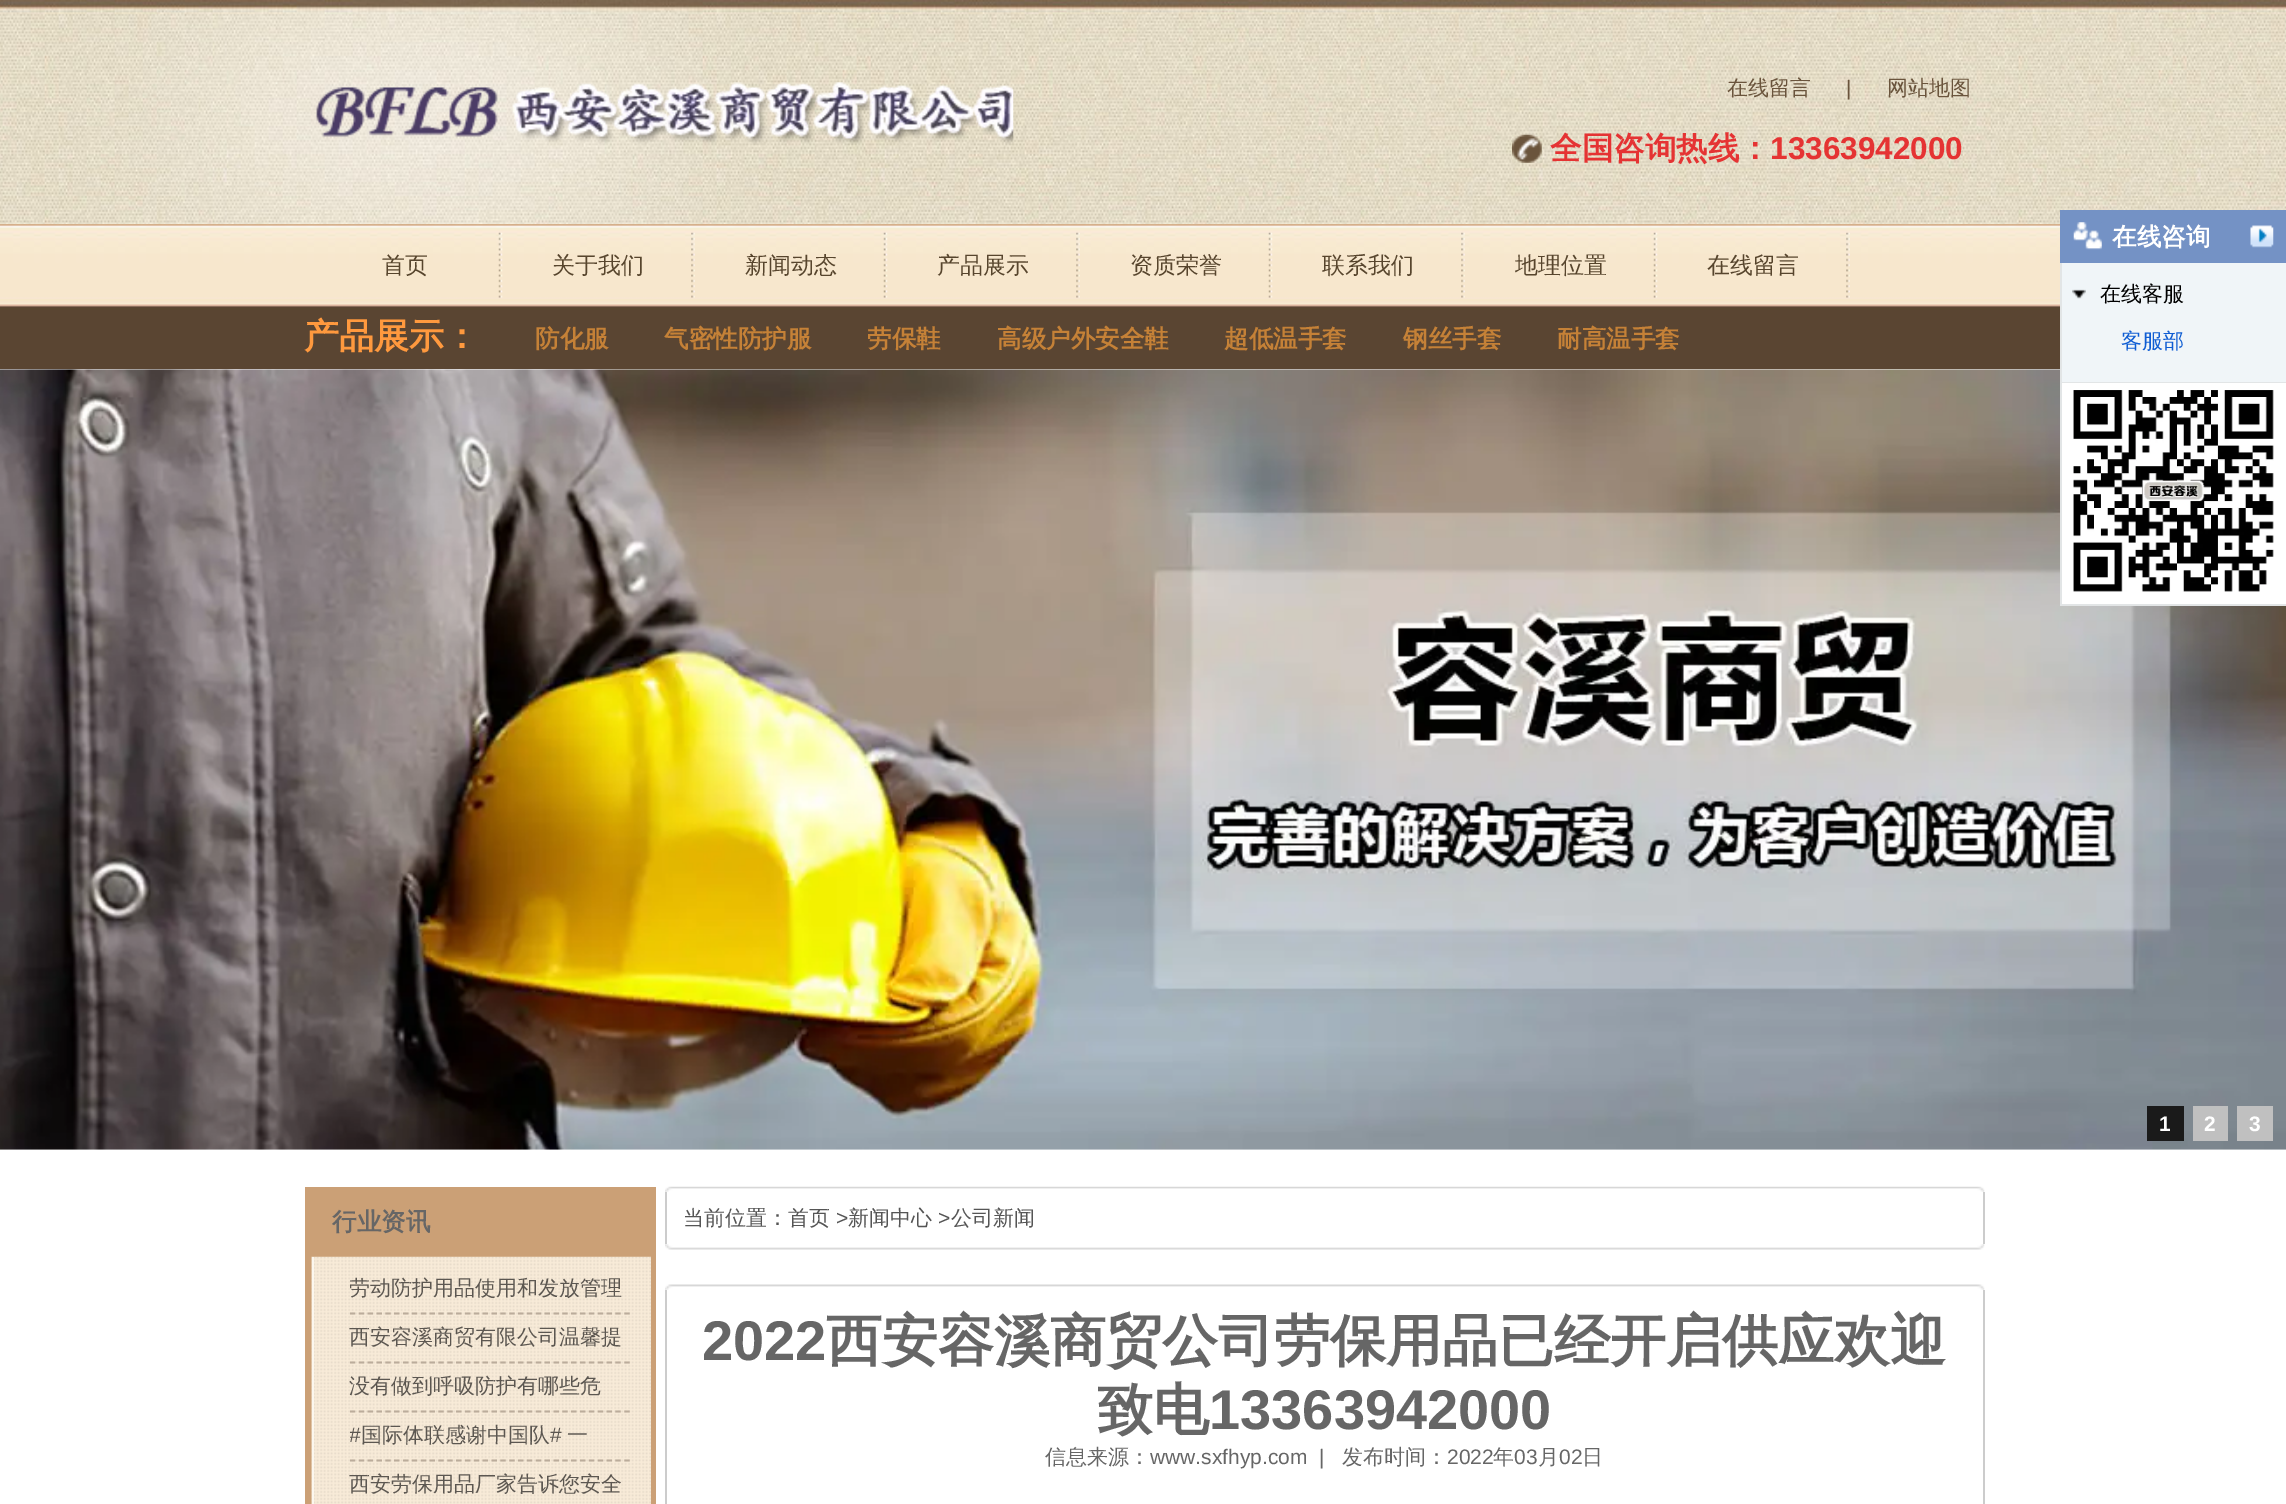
%!PS-Adobe-3.0
%%BoundingBox: 0 0 2286 1504
%%LanguageLevel: 3
%%Pages: 1
%%EndComments
%%BeginProlog
/m { moveto } bind def
/l { lineto } bind def
/S { stroke } bind def
/q { gsave } bind def
/Q { grestore } bind def
/w { setlinewidth } bind def
/fn { [ exch dup neg 0 0 3 -1 roll 0 0 ] selectfont } def
/tx { moveto show } def
/bx { rectfill } def
/im { 5 dict begin { /h /w /y /x /name } { exch def } forall
  gsave x y translate w h scale
  w h 8 [w 0 0 h 0 0] name (r) file false 3 colorimage grestore end } def
%%EndProlog
%%BeginSetup
<< /PageSize [2286 1504] >> setpagedevice
%%EndSetup
%%Page: 1 1
0 1504 translate 1 -1 scale
4 setmiterlimit
1 setgray
0 0 2286 1504 bx
(image0.raw) 0 224 2060 145 im
(image1.raw) 0 0 2286 224 im
(image2.raw) 316 82 698 63 im
/WenQuanYiZenHei-Medium 21 fn
0.416 0.329 0.235 setrgbcolor
(在线留言) 1727 95 tx
/LiberationSans-Regular 21 fn
(|) 1846 95 tx
/WenQuanYiZenHei-Medium 21 fn
(网站地图) 1887 95 tx
(image3.raw) 1512 134 30 29 im
/WenQuanYiZenHei-Bold 31.5 fn
0.898 0.2 0.2 setrgbcolor
(全国咨询热线：) 1550 159 tx
/LiberationSans-Bold 31.5 fn
(13363942000) 1770 159 tx
(image4.raw) 498 232 5 66 im
/WenQuanYiZenHei-Medium 23 fn
0.341 0.271 0.176 setrgbcolor
(首页) 382 273 tx
(image5.raw) 691 232 4 66 im
(关于我们) 552 273 tx
(image6.raw) 883 232 5 66 im
(新闻动态) 745 273 tx
(image7.raw) 1076 232 4 66 im
(产品展示) 937 273 tx
(image8.raw) 1268 232 5 66 im
(资质荣誉) 1130 273 tx
(image9.raw) 1461 232 4 66 im
(联系我们) 1322 273 tx
(image10.raw) 1653 232 5 66 im
(地理位置) 1515 273 tx
(image11.raw) 1846 232 4 66 im
(在线留言) 1707 273 tx
/WenQuanYiZenHei-Bold 35 fn
1 0.6 0.243 setrgbcolor
(产品展示：) 304 348 tx
/WenQuanYiZenHei-Bold 24.5 fn
0.773 0.506 0.216 setrgbcolor
(防化服) 535 347 tx
(气密性防护服) 664 347 tx
(劳保鞋) 867 347 tx
(高级户外安全鞋) 997 347 tx
(超低温手套) 1224 347 tx
(钢丝手套) 1403 347 tx
(耐高温手套) 1557 347 tx
0.455 0.573 0.773 setrgbcolor
2060 210 226 53 bx
(image12.raw) 2073 222 29 28 im
1 setgray
(在线咨询) 2112 245 tx
(image13.raw) 2250 225 24 23 im
(image16.raw) 0 369 2286 781 im
0.941 0.961 0.973 setrgbcolor
2062 263 224 119 bx
0.886 0.898 0.902 setrgbcolor
2060 382 226 1 bx
2060 263 2 120 bx
(image14.raw) 2072 289 14 10 im
/WenQuanYiZenHei-Medium 21 fn
0 setgray
(在线客服) 2100 301 tx
0.059 0.365 0.827 setrgbcolor
(客服部) 2121 348 tx
1 setgray
2062 383 224 221 bx
0.886 0.898 0.902 setrgbcolor
2060 604 226 2 bx
2060 383 2 223 bx
(image15.raw) 2073 390 201 202 im
0.102 setgray
2147 1106 37 35 bx
/LiberationSans-Bold 21 fn
1 setgray
(1) 2159 1131 tx
0.753 setgray
2193 1106 35 35 bx
1 setgray
(2) 2204 1131 tx
0.753 setgray
2237 1106 36 35 bx
1 setgray
(3) 2249 1131 tx
0.796 0.627 0.463 setrgbcolor
305 1187 351 317 bx
/WenQuanYiZenHei-Bold 24.5 fn
0.4 setgray
(行业资讯) 332 1230 tx
(image17.raw) 311 1256 340 248 im
0.988 0.969 0.933 setrgbcolor
312 1257 2 247 bx
0.733 0.675 0.608 setrgbcolor
1.8 w
[5.25 3.6] 0 setdash
350 1313.5 m 630 1313.5 l S
q
350 1265 280 48 rectclip
/WenQuanYiZenHei-Medium 21 fn
0.361 0.341 0.318 setrgbcolor
(劳动防护用品使用和发放管理) 349 1295 tx
Q
350 1362.5 m 630 1362.5 l S
/WenQuanYiZenHei-Medium 21 fn
0.361 0.341 0.318 setrgbcolor
(西安容溪商贸有限公司温馨提) 349 1344 tx
0.733 0.675 0.608 setrgbcolor
350 1411.5 m 630 1411.5 l S
0.361 0.341 0.318 setrgbcolor
(没有做到呼吸防护有哪些危) 349 1393 tx
0.733 0.675 0.608 setrgbcolor
350 1460.5 m 630 1460.5 l S
q
350 1412 280 48 rectclip
/LiberationSans-Regular 21 fn
0.361 0.341 0.318 setrgbcolor
(#) 349 1442 tx
Q
0.361 0.341 0.318 setrgbcolor
(国际体联感谢中国队) 361 1442 tx
/LiberationSans-Regular 21 fn
(#) 550 1442 tx
/WenQuanYiZenHei-Medium 21 fn
(一) 567 1442 tx
(西安劳保用品厂家告诉您安全) 349 1491 tx
(image18.raw) 665 1186 1320 6 im
0.8 setgray
1983 1192 2 52 bx
665 1192 2 52 bx
0.333 setgray
(当前位置：首页) 683 1225 tx
/LiberationSans-Regular 21 fn
(>) 836 1225 tx
/WenQuanYiZenHei-Medium 21 fn
(新闻中心) 848 1225 tx
/LiberationSans-Regular 21 fn
(>) 938 1225 tx
/WenQuanYiZenHei-Medium 21 fn
(公司新闻) 951 1225 tx
(image19.raw) 665 1244 1320 6 im
(image20.raw) 665 1284 1320 6 im
0.8 setgray
1983 1290 2 214 bx
665 1290 2 214 bx
/LiberationSans-Bold 56 fn
0.4 setgray
(2022) 702 1360 tx
/WenQuanYiZenHei-Bold 56 fn
(西安容溪商贸公司劳保用品已经开启供应欢迎) 826 1360 tx
(致电) 1097 1429 tx
/LiberationSans-Bold 56 fn
(13363942000) 1209 1429 tx
/WenQuanYiZenHei-Medium 21 fn
(信息来源：) 1045 1464 tx
/LiberationSans-Regular 21 fn
(www.sxfhyp.com) 1150 1464 tx
(|) 1319 1464 tx
/WenQuanYiZenHei-Medium 21 fn
(发布时间：) 1342 1464 tx
/LiberationSans-Regular 21 fn
(2022) 1447 1464 tx
/WenQuanYiZenHei-Medium 21 fn
(年) 1493 1464 tx
/LiberationSans-Regular 21 fn
(03) 1514 1464 tx
/WenQuanYiZenHei-Medium 21 fn
(月) 1538 1464 tx
/LiberationSans-Regular 21 fn
(02) 1559 1464 tx
/WenQuanYiZenHei-Medium 21 fn
(日) 1582 1464 tx
showpage
%%EOF
